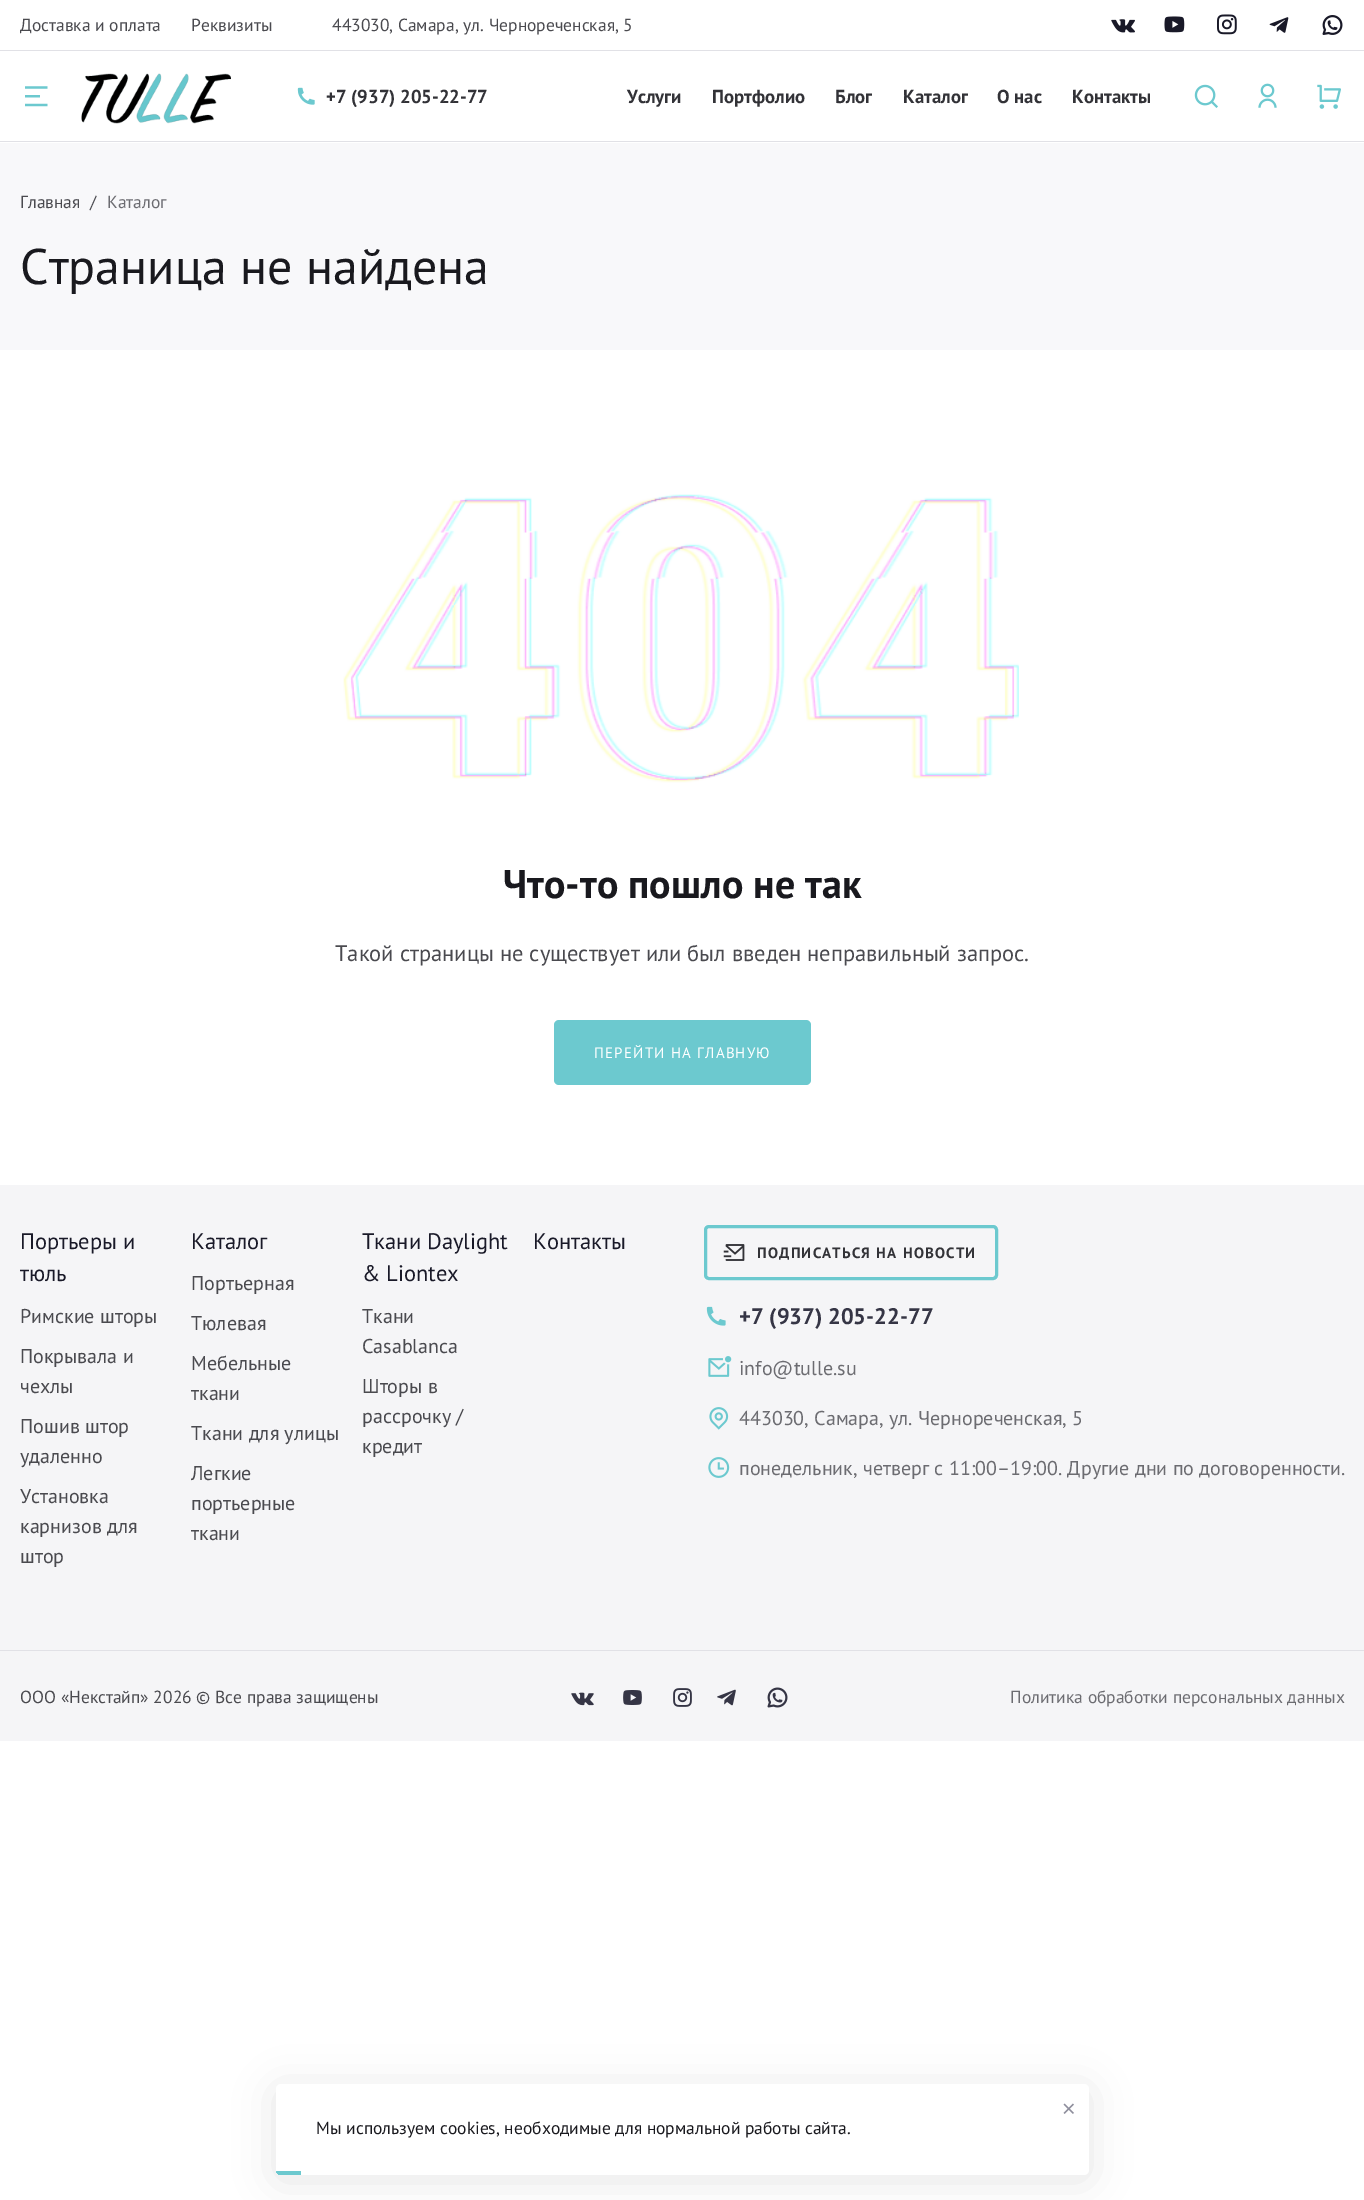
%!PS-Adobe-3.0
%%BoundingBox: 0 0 1364 2200
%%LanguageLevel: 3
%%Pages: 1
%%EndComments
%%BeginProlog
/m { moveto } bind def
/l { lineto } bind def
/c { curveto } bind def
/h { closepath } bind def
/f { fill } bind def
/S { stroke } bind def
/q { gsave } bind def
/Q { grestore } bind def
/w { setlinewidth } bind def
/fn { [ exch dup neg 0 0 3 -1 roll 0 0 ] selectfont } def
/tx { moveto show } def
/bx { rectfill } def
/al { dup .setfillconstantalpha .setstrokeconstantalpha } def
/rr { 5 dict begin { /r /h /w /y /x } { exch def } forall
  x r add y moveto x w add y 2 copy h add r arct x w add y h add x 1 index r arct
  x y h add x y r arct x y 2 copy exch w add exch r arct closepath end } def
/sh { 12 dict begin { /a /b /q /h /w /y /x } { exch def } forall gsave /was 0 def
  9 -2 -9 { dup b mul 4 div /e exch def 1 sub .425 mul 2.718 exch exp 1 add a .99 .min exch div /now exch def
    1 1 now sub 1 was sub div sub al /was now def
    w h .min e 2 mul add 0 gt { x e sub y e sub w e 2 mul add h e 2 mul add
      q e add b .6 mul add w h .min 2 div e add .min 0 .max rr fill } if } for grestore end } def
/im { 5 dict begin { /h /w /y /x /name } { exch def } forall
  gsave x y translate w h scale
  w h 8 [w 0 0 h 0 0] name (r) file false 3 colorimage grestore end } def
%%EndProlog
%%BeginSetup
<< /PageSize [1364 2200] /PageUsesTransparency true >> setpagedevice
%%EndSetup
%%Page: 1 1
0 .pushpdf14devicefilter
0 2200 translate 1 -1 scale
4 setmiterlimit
1 setgray
0 0 1364 2200 bx
0.882 0.882 0.902 setrgbcolor
0 141 1364 1 bx
0 50 1364 1 bx
/PTSans-Regular 17.5 fn
0.29 0.29 0.31 setrgbcolor
(Доставка и оплата) 20 31 tx
(Реквизиты) 191 31 tx
(443030, Самара, ул. Чернореченская, 5) 332 31 tx
(image0.raw) 1111 19 24 14 im
(image1.raw) 1164 16 21 17 im
(image2.raw) 1217 14 20 21 im
(image3.raw) 1269 17 20 16 im
(image4.raw) 1322 15 21 20 im
(image5.raw) 25 86 23 21 im
(image6.raw) 81 73 150 51 im
(image7.raw) 297 87 18 18 im
/PTSans-Bold 18.75 fn
0.196 0.196 0.216 setrgbcolor
(+7 \(937\) 205-22-77) 326 103 tx
(Услуги) 627 103 tx
(Портфолио) 712 103 tx
(Блог) 835 103 tx
(Каталог) 903 103 tx
(О нас) 997 103 tx
(Контакты) 1072 103 tx
(image8.raw) 1194 84 24 24 im
(image9.raw) 1258 83 19 25 im
(image10.raw) 1317 84 24 25 im
0.973 0.973 0.98 setrgbcolor
0 143 1364 207 bx
/PTSans-Regular 17.5 fn
0.29 0.29 0.31 setrgbcolor
(Главная) 20 208 tx
(/) 90 208 tx
0.424 0.424 0.443 setrgbcolor
(Каталог) 107 208 tx
/PTSans-Regular 50 fn
0.098 0.098 0.118 setrgbcolor
(Страница не найдена) 20 284 tx
(image11.raw) 343 494 676 289 im
/PTSans-Bold 40 fn
(Что-то пошло не так) 503 898 tx
/PTSans-Regular 22.5 fn
0.29 0.29 0.31 setrgbcolor
(Такой страницы не существует или был введен неправильный запрос.) 335 961 tx
0.424 0.788 0.812 setrgbcolor
554 1020 257 65 5 rr f
/PTSans-Regular 15 fn
1 setgray
594 1058 m 1.2 0 (ПЕРЕЙТИ НА ГЛАВНУЮ) ashow
0.961 0.961 0.969 setrgbcolor
0 1185 1364 556 bx
0.882 0.882 0.902 setrgbcolor
0 1650 1364 1 bx
/PTSans-Regular 22.5 fn
0.098 0.098 0.157 setrgbcolor
(Портьеры и) 20 1249 tx
(тюль) 20 1281 tx
/PTSans-Regular 20 fn
0.29 0.29 0.31 setrgbcolor
(Римские шторы) 20 1323 tx
(Покрывала и) 20 1363 tx
(чехлы) 20 1393 tx
(Пошив штор) 20 1433 tx
(удаленно) 20 1463 tx
(Установка) 20 1503 tx
(карнизов для) 20 1533 tx
(штор) 20 1563 tx
/PTSans-Regular 22.5 fn
0.098 0.098 0.157 setrgbcolor
(Каталог) 191 1249 tx
/PTSans-Regular 20 fn
0.29 0.29 0.31 setrgbcolor
(Портьерная) 191 1290 tx
(Тюлевая) 191 1330 tx
(Мебельные) 191 1370 tx
(ткани) 191 1400 tx
(Ткани для улицы) 191 1440 tx
(Легкие) 191 1480 tx
(портьерные) 191 1510 tx
(ткани) 191 1540 tx
/PTSans-Regular 22.5 fn
0.098 0.098 0.157 setrgbcolor
(Ткани Daylight) 362 1249 tx
(& Liontex) 362 1281 tx
/PTSans-Regular 20 fn
0.29 0.29 0.31 setrgbcolor
(Ткани) 362 1323 tx
(Casablanca) 362 1353 tx
(Шторы в) 362 1393 tx
(рассрочку /) 362 1423 tx
(кредит) 362 1453 tx
/PTSans-Regular 22.5 fn
0.098 0.098 0.157 setrgbcolor
(Контакты) 533 1249 tx
0.424 0.788 0.812 setrgbcolor
3 w
705.5 1226.5 291 52 3.5 rr S
(image12.raw) 723 1244 22 17 im
/PTSans-Bold 15 fn
0.196 0.196 0.216 setrgbcolor
757 1258 m 1.2 0 (ПОДПИСАТЬСЯ НА НОВОСТИ) ashow
(image13.raw) 706 1306 20 20 im
/PTSans-Bold 22.5 fn
0.208 0.208 0.271 setrgbcolor
(+7 \(937\) 205-22-77) 739 1324 tx
(image14.raw) 708 1356 24 21 im
/PTSans-Regular 20 fn
0.424 0.424 0.443 setrgbcolor
(info@tulle.su) 739 1375 tx
(image15.raw) 709 1407 20 23 im
(443030, Самара, ул. Чернореченская, 5) 739 1425 tx
(image16.raw) 708 1457 22 21 im
(понедельник, четверг с 11:00–19:00. Другие дни по договоренности.) 739 1475 tx
/PTSans-Regular 17.5 fn
0.29 0.29 0.31 setrgbcolor
(ООО «Некстайп» 2026 © Все права защищены) 20 1703 tx
(image17.raw) 571 1692 23 14 im
(image18.raw) 623 1690 19 15 im
(image19.raw) 673 1688 19 19 im
(image20.raw) 717 1689 19 17 im
(image21.raw) 767 1687 21 21 im
0.424 0.424 0.443 setrgbcolor
(Политика обработки персональных данных) 1010 1703 tx
0 setgray
276 2089 813 91 5 20 0.1 sh
1 setgray
276 2084 813 91 5 rr f
(image22.raw) 1063 2103 11 11 im
0.098 0.098 0.118 setrgbcolor
(Мы используем cookies, необходимые для нормальной работы сайта.) 316 2134 tx
q
276 2084 813 91 5 rr clip newpath
0.424 0.788 0.812 setrgbcolor
277 2171 m 301 2171 l 301 2175 l 277 2175 l 276.5 2175 276 2174.5 276 2174 c 276 2172 l 276 2171.5 276.5 2171 277 2171 c h f
Q
.poppdf14devicefilter showpage
%%EOF
